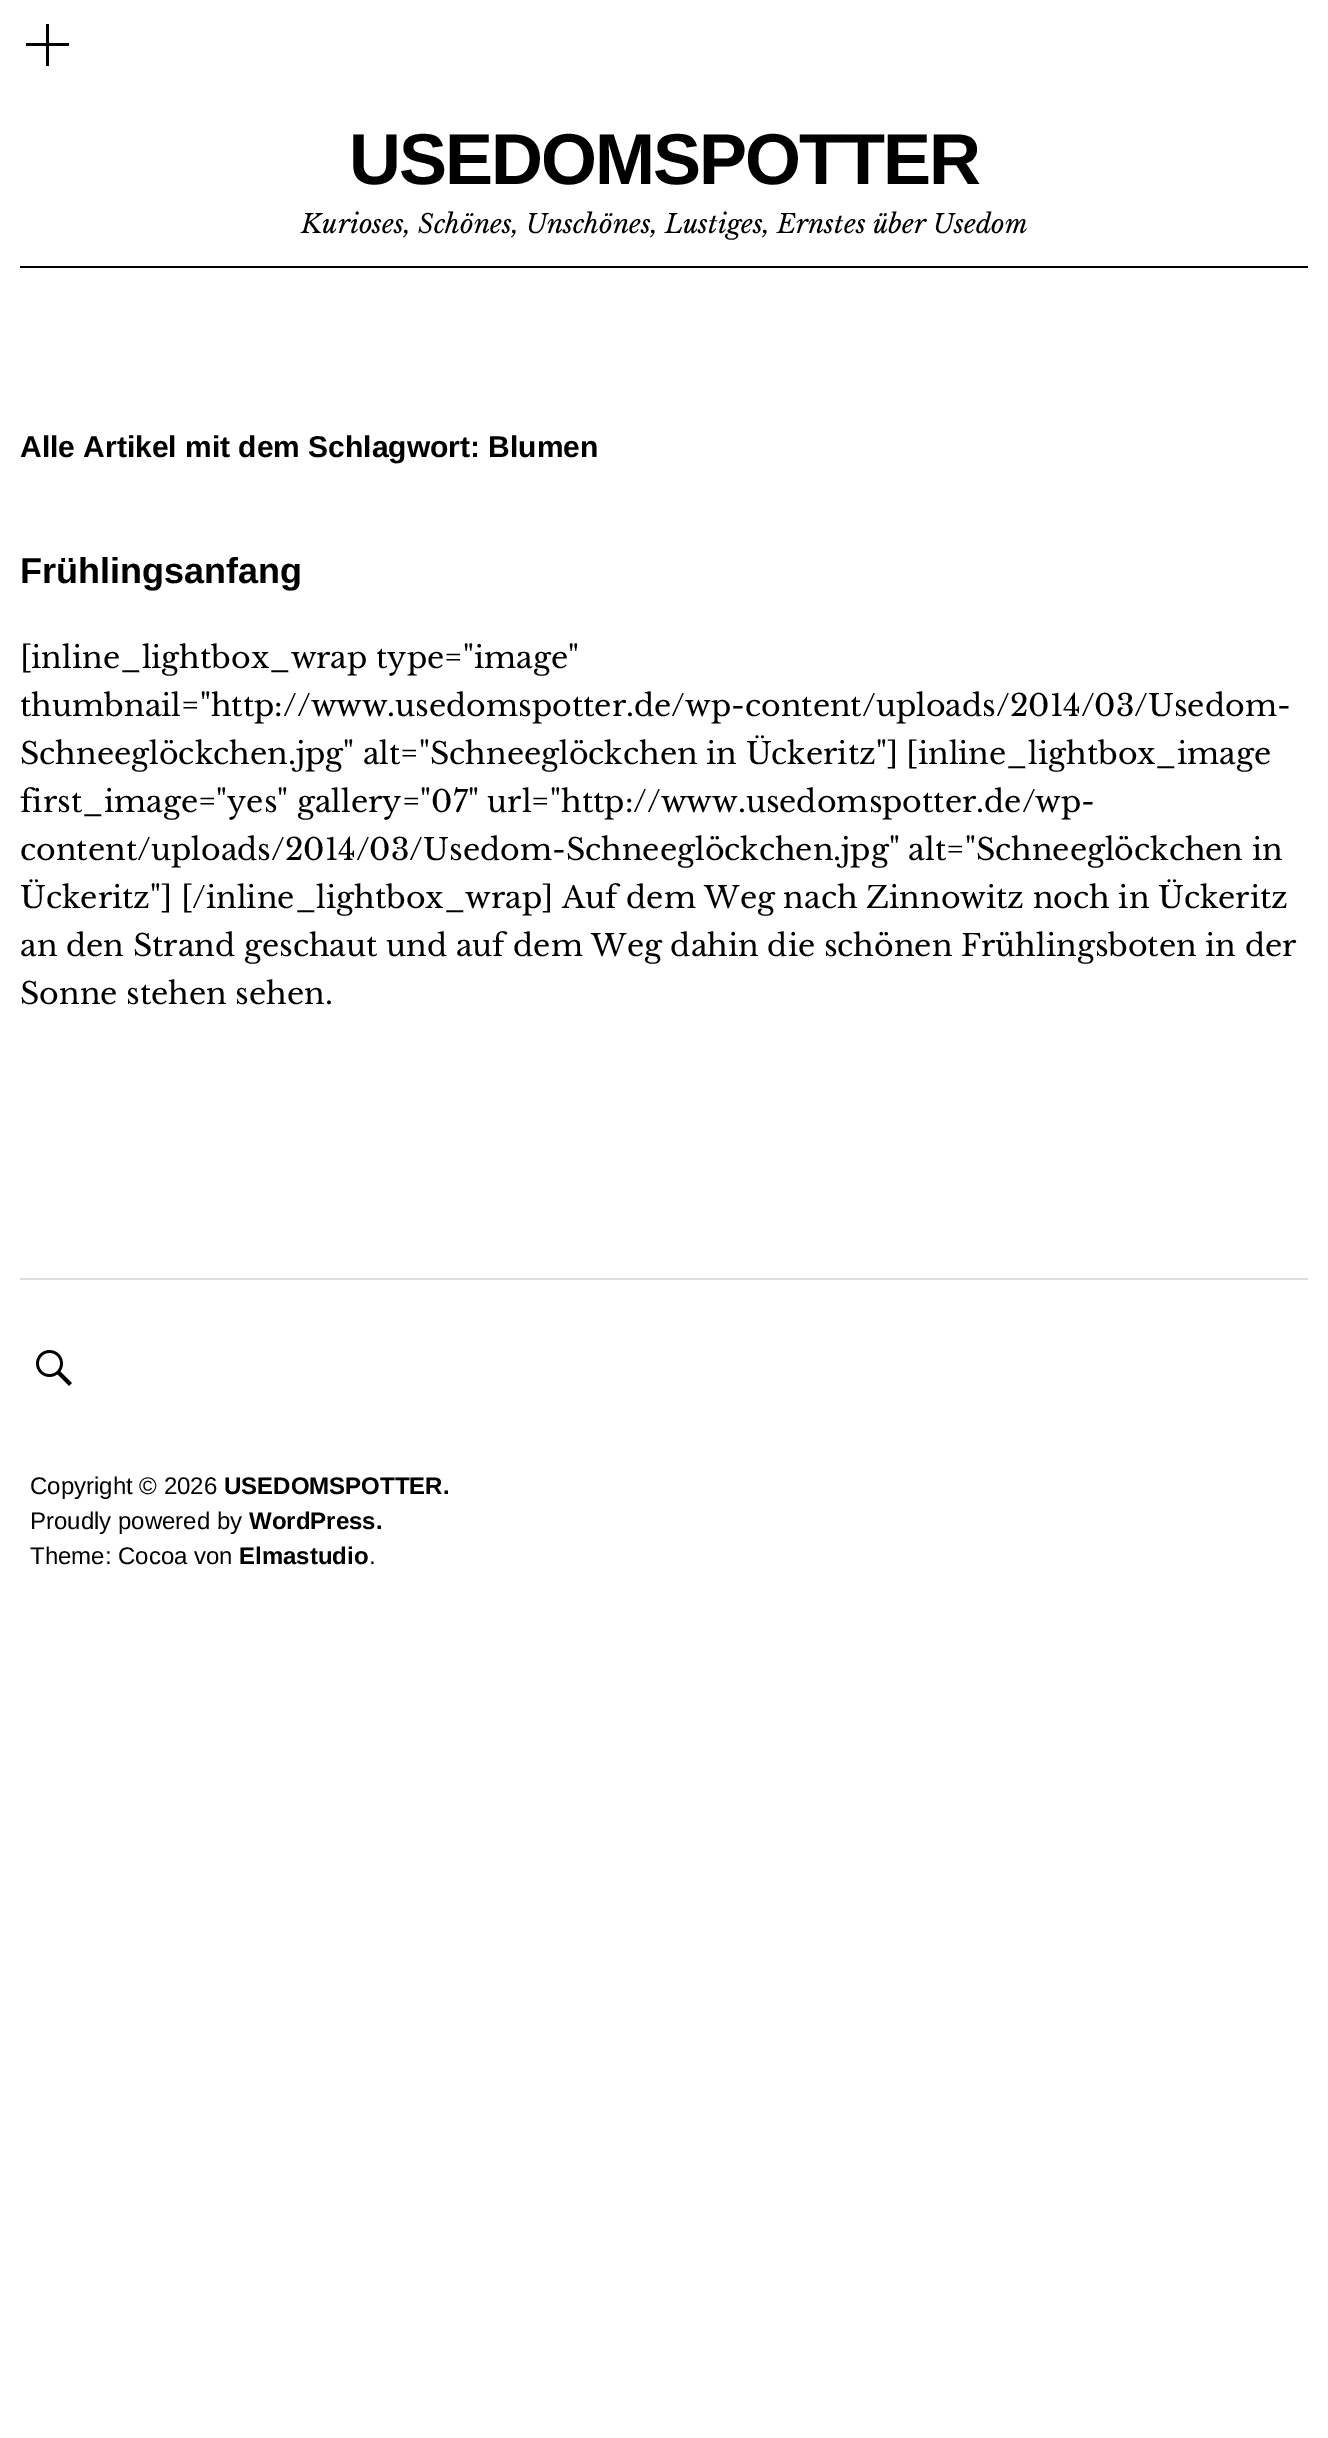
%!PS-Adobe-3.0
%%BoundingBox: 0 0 1328 2438
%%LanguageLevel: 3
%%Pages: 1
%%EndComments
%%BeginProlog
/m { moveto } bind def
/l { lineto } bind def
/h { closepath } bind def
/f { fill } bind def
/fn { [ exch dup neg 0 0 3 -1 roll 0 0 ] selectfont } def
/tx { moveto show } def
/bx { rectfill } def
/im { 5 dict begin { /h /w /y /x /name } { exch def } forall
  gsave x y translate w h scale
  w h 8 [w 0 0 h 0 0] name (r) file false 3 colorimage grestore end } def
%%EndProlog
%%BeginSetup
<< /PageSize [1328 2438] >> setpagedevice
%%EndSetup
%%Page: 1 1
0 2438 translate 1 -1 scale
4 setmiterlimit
1 setgray
0 0 1328 2438 bx
0 setgray
69 46 m 49 46 l 49 66 l 46 66 l 46 46 l 26 46 l 26 43 l 46 43 l 46 24 l 49 24 l 49 43 l 69 43 l h f
20 266 1288 2 bx
/LiberationSans-Bold 72 fn
349 184 m -2 0 (USEDOMSPOTTER) ashow
/LibreBaskerville-Italic 26 fn
(Kurioses, Schönes, Unschönes, Lustiges, Ernstes über Usedom) 301 233 tx
/LiberationSans-Bold 30 fn
(Alle Artikel mit dem Schlagwort: Blumen) 20 457 tx
/LiberationSans-Bold 36 fn
(Frühlingsanfang) 20 583 tx
/LibreBaskerville-Regular 30 fn
([inline_lightbox_wrap type="image") 20 668 tx
(thumbnail="http://www.usedomspotter.de/wp-content/uploads/2014/03/Usedom-) 20 716 tx
(Schneeglöckchen.jpg" alt="Schneeglöckchen in Ückeritz"] [inline_lightbox_image) 20 764 tx
(first_image="yes" gallery="07" url="http://www.usedomspotter.de/wp-) 20 812 tx
(content/uploads/2014/03/Usedom-Schneeglöckchen.jpg" alt="Schneeglöckchen in) 20 860 tx
(Ückeritz"] [/inline_lightbox_wrap] Auf dem Weg nach Zinnowitz noch in Ückeritz) 20 908 tx
(an den Strand geschaut und auf dem Weg dahin die schönen Frühlingsboten in der) 20 956 tx
(Sonne stehen sehen.) 20 1004 tx
0.867 setgray
20 1278 1288 2 bx
(image0.raw) 36 1350 36 36 im
/LiberationSans-Regular 24 fn
0 setgray
(Copyright © 2026) 30 1494 tx
/LiberationSans-Bold 24 fn
(USEDOMSPOTTER.) 224 1494 tx
/LiberationSans-Regular 24 fn
(Proudly powered by) 30 1529 tx
/LiberationSans-Bold 24 fn
(WordPress.) 249 1529 tx
/LiberationSans-Regular 24 fn
(Theme: Cocoa von) 30 1564 tx
/LiberationSans-Bold 24 fn
(Elmastudio) 239 1564 tx
/LiberationSans-Regular 24 fn
(.) 369 1564 tx
showpage
%%EOF
